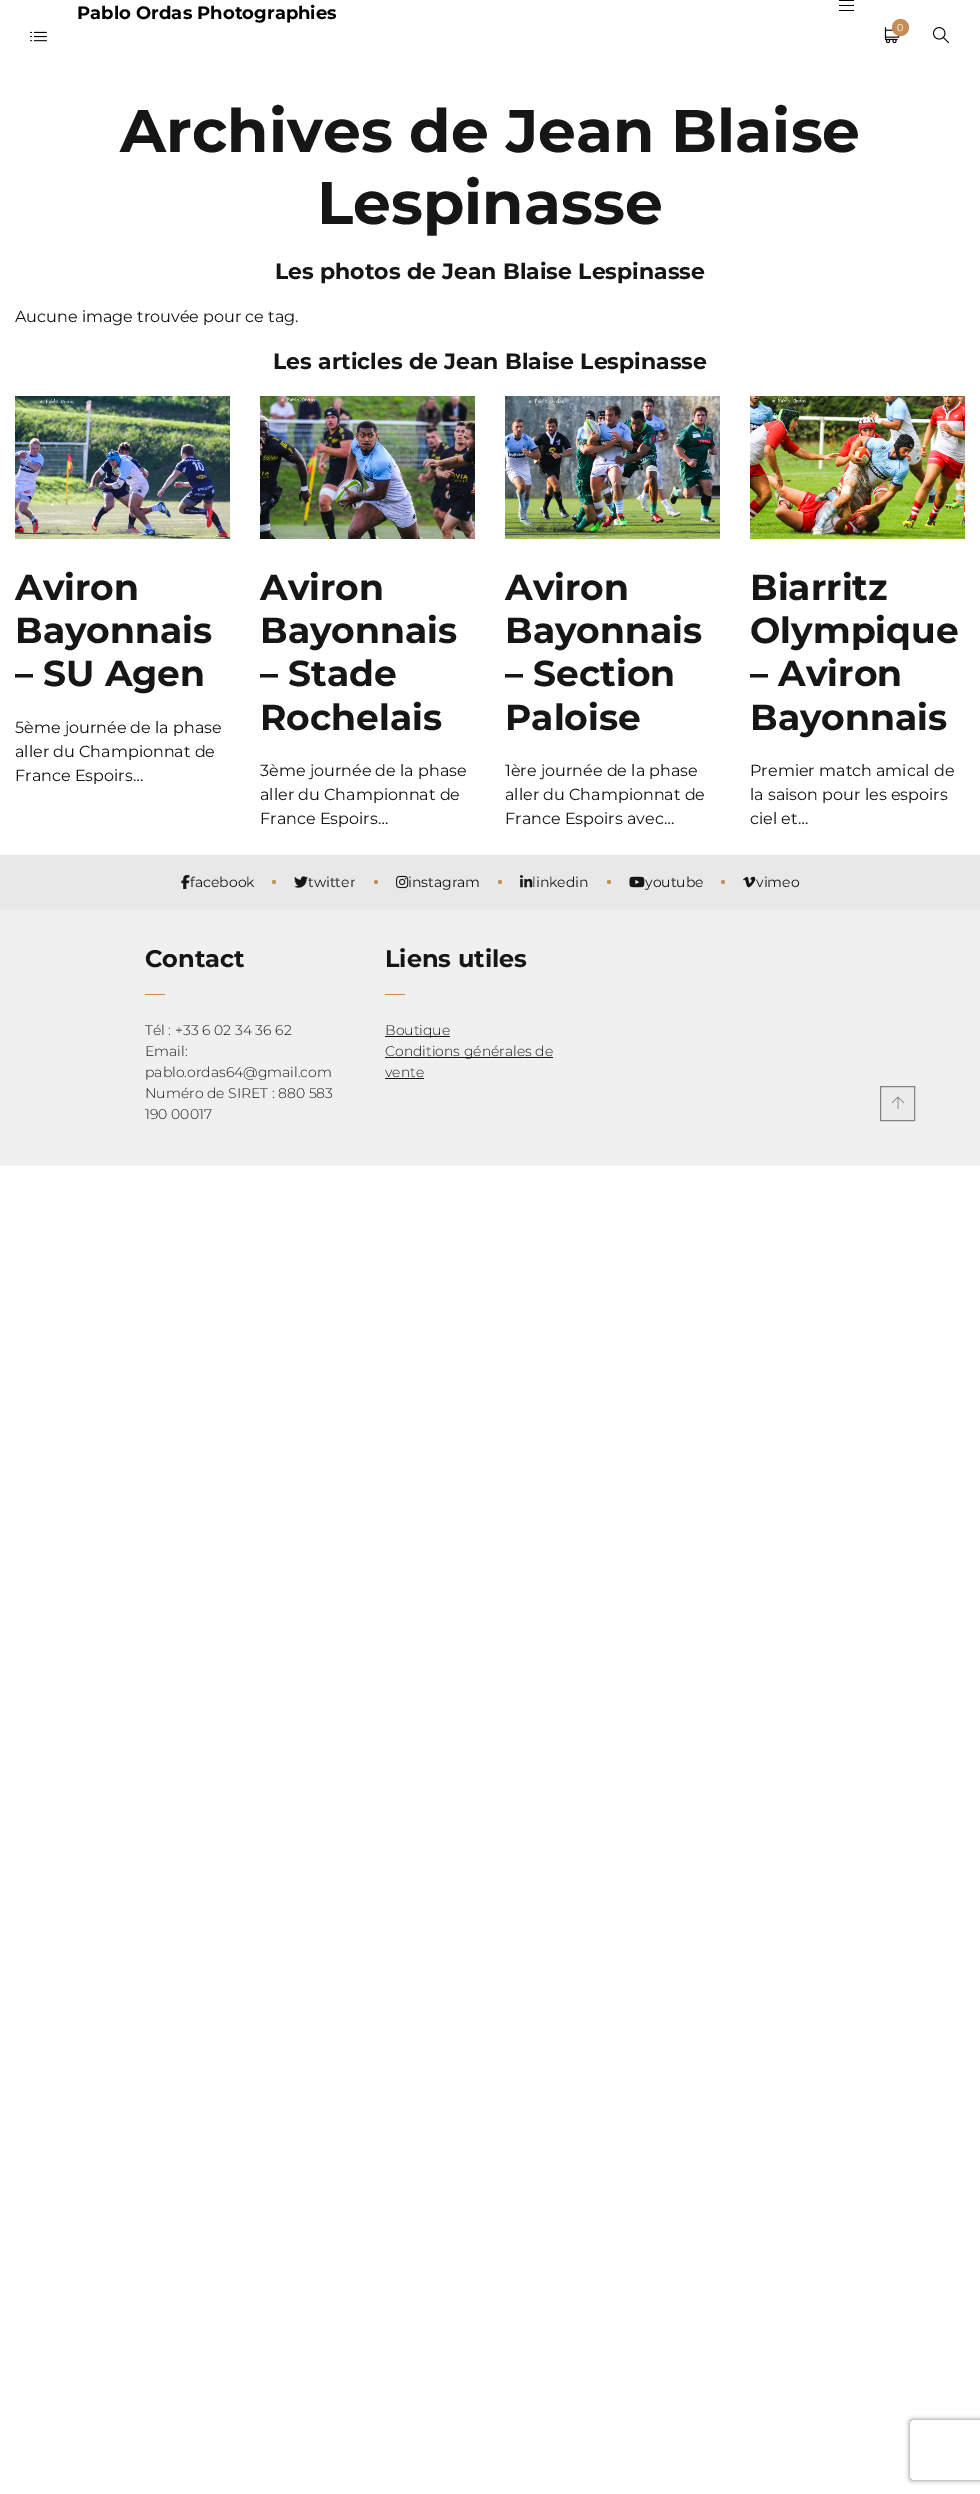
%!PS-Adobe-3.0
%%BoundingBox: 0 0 980 2494
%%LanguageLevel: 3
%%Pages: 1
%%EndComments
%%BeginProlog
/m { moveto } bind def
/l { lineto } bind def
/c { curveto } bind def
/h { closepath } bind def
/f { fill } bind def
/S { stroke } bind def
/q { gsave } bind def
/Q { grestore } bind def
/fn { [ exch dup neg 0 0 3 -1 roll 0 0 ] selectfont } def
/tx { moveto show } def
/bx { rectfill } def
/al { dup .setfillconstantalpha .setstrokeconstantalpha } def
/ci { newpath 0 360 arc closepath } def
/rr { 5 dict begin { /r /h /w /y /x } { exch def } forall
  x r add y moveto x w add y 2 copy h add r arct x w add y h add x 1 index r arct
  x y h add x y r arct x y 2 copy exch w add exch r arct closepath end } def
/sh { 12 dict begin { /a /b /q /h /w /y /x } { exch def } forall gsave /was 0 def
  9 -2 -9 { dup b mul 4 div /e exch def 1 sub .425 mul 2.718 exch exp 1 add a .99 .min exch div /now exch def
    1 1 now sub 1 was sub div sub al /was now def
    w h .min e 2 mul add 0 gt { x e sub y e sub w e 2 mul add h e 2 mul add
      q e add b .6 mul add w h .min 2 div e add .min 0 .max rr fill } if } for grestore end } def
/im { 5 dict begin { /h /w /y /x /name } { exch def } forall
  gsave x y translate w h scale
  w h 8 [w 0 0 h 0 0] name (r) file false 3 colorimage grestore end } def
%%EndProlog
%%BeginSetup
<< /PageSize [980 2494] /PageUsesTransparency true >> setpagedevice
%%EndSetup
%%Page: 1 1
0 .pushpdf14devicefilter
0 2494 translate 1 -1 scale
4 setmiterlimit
1 setgray
0 0 980 2494 bx
/Montserrat-Bold 18 fn
0 setgray
(Pablo Ordas Photographies) 77 19 tx
839 0 15 1 bx
839 5 15 1 bx
839 10 15 1 bx
(image0.raw) 884 27 16 17 im
0.769 0.561 0.337 setrgbcolor
900.5 27.5 8.5 ci f
/Montserrat-Regular 10 fn
1 setgray
(0) 897 31 tx
(image1.raw) 932 27 17 17 im
(image2.raw) 30 31 17 11 im
/Montserrat-Bold 60 fn
0.086 setgray
(Archives de Jean Blaise) 120 152 tx
(Lespinasse) 317 224 tx
/Montserrat-Bold 22 fn
(Les photos de Jean Blaise Lespinasse) 275 279 tx
/Montserrat-Regular 16 fn
(Aucune image trouvée pour ce tag.) 15 322 tx
/Montserrat-Bold 22 fn
(Les articles de Jean Blaise Lespinasse) 273 369 tx
(image3.raw) 15 396 215 143 im
/Montserrat-Bold 36 fn
(Aviron) 15 600 tx
(Bayonnais) 15 643 tx
(– SU Agen) 15 686 tx
/Montserrat-Regular 16 fn
(5ème journée de la phase) 15 733 tx
(aller du Championnat de) 15 757 tx
(France Espoirs…) 15 781 tx
(image4.raw) 260 396 215 143 im
/Montserrat-Bold 36 fn
(Aviron) 260 600 tx
(Bayonnais) 260 643 tx
(– Stade) 260 686 tx
(Rochelais) 260 730 tx
/Montserrat-Regular 16 fn
(3ème journée de la phase) 260 776 tx
(aller du Championnat de) 260 800 tx
(France Espoirs…) 260 824 tx
(image5.raw) 505 396 215 143 im
/Montserrat-Bold 36 fn
(Aviron) 505 600 tx
(Bayonnais) 505 643 tx
(– Section) 505 686 tx
(Paloise) 505 730 tx
/Montserrat-Regular 16 fn
(1ère journée de la phase) 505 776 tx
(aller du Championnat de) 505 800 tx
(France Espoirs avec…) 505 824 tx
(image6.raw) 750 396 215 143 im
/Montserrat-Bold 36 fn
(Biarritz) 750 600 tx
(Olympique) 750 643 tx
(– Aviron) 750 686 tx
(Bayonnais) 750 730 tx
/Montserrat-Regular 16 fn
(Premier match amical de) 750 776 tx
(la saison pour les espoirs) 750 800 tx
(ciel et…) 750 824 tx
0.91 setgray
0 855 980 55 bx
/Montserrat-Regular 14 fn
0.086 setgray
(facebook) 190 887 tx
(image7.raw) 181 875 9 14 im
0.769 0.561 0.337 setrgbcolor
274 882 2 ci f
(image8.raw) 294 876 14 12 im
0.086 setgray
(twitter) 308 887 tx
0.769 0.561 0.337 setrgbcolor
376 882 2 ci f
0.086 setgray
(instagram) 408 887 tx
(image9.raw) 396 875 13 14 im
0.769 0.561 0.337 setrgbcolor
500 882 2 ci f
(image10.raw) 520 875 13 13 im
0.086 setgray
(linkedin) 532 887 tx
0.769 0.561 0.337 setrgbcolor
609 882 2 ci f
0.086 setgray
(youtube) 645 887 tx
(image11.raw) 629 876 16 12 im
0.769 0.561 0.337 setrgbcolor
723 882 2 ci f
0.086 setgray
(vimeo) 756 887 tx
(image12.raw) 743 876 13 12 im
0.941 setgray
0 910 980 256 bx
/Montserrat-Bold 24 fn
0.086 setgray
(Contact) 145 967 tx
0.769 0.561 0.337 setrgbcolor
145 994 20 1 bx
/Montserrat-Light 14 fn
0.086 setgray
(Tél : +33 6 02 34 36 62) 145 1035 tx
(Email:) 145 1056 tx
(pablo.ordas64@gmail.com) 145 1077 tx
(Numéro de SIRET : 880 583) 145 1098 tx
(190 00017) 145 1119 tx
/Montserrat-Bold 24 fn
(Liens utiles) 385 967 tx
0.769 0.561 0.337 setrgbcolor
385 994 20 1 bx
0.086 setgray
385 1036 65 1 bx
/Montserrat-Light 14 fn
(Boutique) 385 1035 tx
385 1057 168 1 bx
(Conditions générales de) 385 1056 tx
(vente) 385 1077 tx
385 1078 39 1 bx
0.925 setgray
880.5 1086.5 m 914.5 1086.5 l 914.5 1120.5 l 880.5 1120.5 l h q f Q
0.514 setgray
S
(image13.raw) 891 1096 14 13 im
q
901 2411 m 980 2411 l 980 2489 l 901 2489 l h 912 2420 m 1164 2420 l 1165 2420 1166 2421 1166 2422 c 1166 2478 l 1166 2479 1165 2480 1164 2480 c 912 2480 l 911 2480 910 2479 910 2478 c 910 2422 l 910 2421 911 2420 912 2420 c h eoclip newpath
0.502 setgray
910 2420 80 60 2 2.5 1 sh
Q
.poppdf14devicefilter showpage
%%EOF
